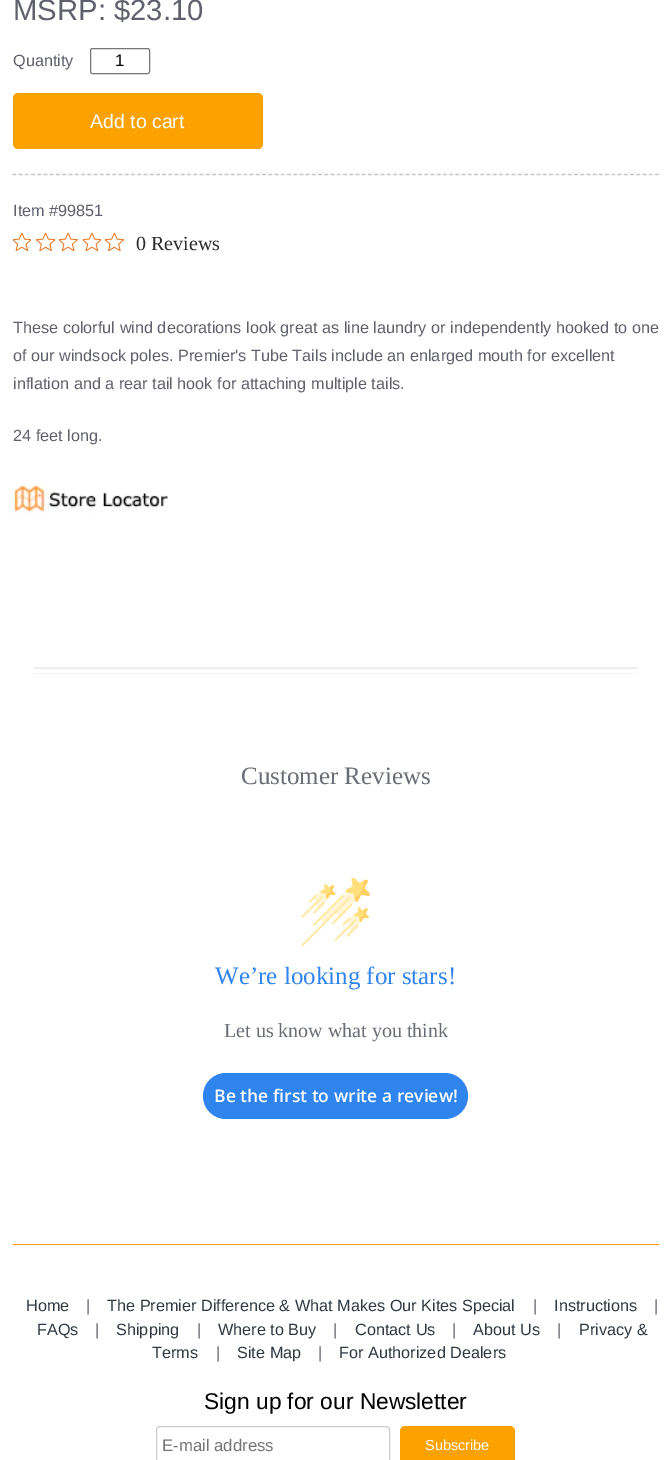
%!PS-Adobe-3.0
%%BoundingBox: 0 0 671 1460
%%LanguageLevel: 3
%%Pages: 1
%%EndComments
%%BeginProlog
/m { moveto } bind def
/l { lineto } bind def
/f { fill } bind def
/S { stroke } bind def
/w { setlinewidth } bind def
/fn { [ exch dup neg 0 0 3 -1 roll 0 0 ] selectfont } def
/tx { moveto show } def
/bx { rectfill } def
/rr { 5 dict begin { /r /h /w /y /x } { exch def } forall
  x r add y moveto x w add y 2 copy h add r arct x w add y h add x 1 index r arct
  x y h add x y r arct x y 2 copy exch w add exch r arct closepath end } def
/im { 5 dict begin { /h /w /y /x /name } { exch def } forall
  gsave x y translate w h scale
  w h 8 [w 0 0 h 0 0] name (r) file false 3 colorimage grestore end } def
%%EndProlog
%%BeginSetup
<< /PageSize [671 1460] >> setpagedevice
%%EndSetup
%%Page: 1 1
0 1460 translate 1 -1 scale
4 setmiterlimit
1 setgray
0 0 671 1460 bx
/LiberationSans-Regular 29.25 fn
0.376 0.376 0.427 setrgbcolor
(MSRP: $23.10) 13 20 tx
/LiberationSans-Regular 16.25 fn
(Quantity) 13 66 tx
0.463 setgray
90.5 48.5 59 25 2 rr S
/LiberationSans-Regular 16.75 fn
0 setgray
(1) 115 66 tx
0.988 0.635 0 setrgbcolor
13 93 250 56 5 rr f
/LiberationSans-Regular 19.5 fn
1 setgray
(Add to cart) 90 128 tx
0.784 setgray
1.2 w
[3.75 2.49] 0 setdash
12.5 174.5 m 659 174.5 l S
/LiberationSans-Regular 16.25 fn
0.376 0.376 0.427 setrgbcolor
(Item #99851) 13 216 tx
(image0.raw) 13 233 18 18 im
(image1.raw) 36 233 19 18 im
(image2.raw) 59 233 19 18 im
(image0.raw) 83 233 18 18 im
(image3.raw) 105 233 19 18 im
/LiberationSerif-Regular 20 fn
0.173 setgray
(0 Reviews) 136 250 tx
/LiberationSans-Regular 16.25 fn
0.376 0.376 0.427 setrgbcolor
(These colorful wind decorations look great as line laundry or independently hooked to one) 13 333 tx
(of our windsock poles. Premier's Tube Tails include an enlarged mouth for excellent) 13 361 tx
(inflation and a rear tail hook for attaching multiple tails.) 13 389 tx
(24 feet long.) 13 441 tx
(image4.raw) 12 484 156 31 im
(image5.raw) 33 667 605 7 im
/LiberationSerif-Regular 25 fn
0.42 0.427 0.463 setrgbcolor
(Customer Reviews) 241 784 tx
(image6.raw) 301 878 69 68 im
0.184 0.518 0.929 setrgbcolor
(We’re looking for stars!) 215 984 tx
/LiberationSerif-Regular 20 fn
0.42 0.427 0.463 setrgbcolor
(Let us know what you think) 224 1037 tx
0.184 0.518 0.929 setrgbcolor
203 1073 265 46 23 rr f
/OpenSans-SemiBold 17.5 fn
1 setgray
(Be the first to write a review!) 214 1102 tx
1 0.592 0.071 setrgbcolor
13 1244 646 1 bx
/LiberationSans-Regular 16.25 fn
0.188 0.224 0.259 setrgbcolor
(Home) 26 1311 tx
0.376 0.376 0.427 setrgbcolor
(|) 86 1311 tx
0.188 0.224 0.259 setrgbcolor
(The Premier Difference & What Makes Our Kites Special) 107 1311 tx
0.376 0.376 0.427 setrgbcolor
(|) 533 1311 tx
0.188 0.224 0.259 setrgbcolor
(Instructions) 554 1311 tx
0.376 0.376 0.427 setrgbcolor
(|) 654 1311 tx
0.188 0.224 0.259 setrgbcolor
(FAQs) 37 1335 tx
0.376 0.376 0.427 setrgbcolor
(|) 95 1335 tx
0.188 0.224 0.259 setrgbcolor
(Shipping) 116 1335 tx
0.376 0.376 0.427 setrgbcolor
(|) 197 1335 tx
0.188 0.224 0.259 setrgbcolor
(Where to Buy) 218 1335 tx
0.376 0.376 0.427 setrgbcolor
(|) 333 1335 tx
0.188 0.224 0.259 setrgbcolor
(Contact Us) 355 1335 tx
0.376 0.376 0.427 setrgbcolor
(|) 452 1335 tx
0.188 0.224 0.259 setrgbcolor
(About Us) 473 1335 tx
0.376 0.376 0.427 setrgbcolor
(|) 557 1335 tx
0.188 0.224 0.259 setrgbcolor
(Privacy &) 579 1335 tx
(Terms) 152 1358 tx
0.376 0.376 0.427 setrgbcolor
(|) 216 1358 tx
0.188 0.224 0.259 setrgbcolor
(Site Map) 237 1358 tx
0.376 0.376 0.427 setrgbcolor
(|) 318 1358 tx
0.188 0.224 0.259 setrgbcolor
(For Authorized Dealers) 339 1358 tx
/LiberationSans-Regular 22.75 fn
0 setgray
(Sign up for our Newsletter) 204 1409 tx
0.8 setgray
1 w
[] 0 setdash
156.5 1426.5 233 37 3.5 rr S
/LiberationSans-Regular 16.75 fn
0.459 setgray
(E-mail address) 162 1451 tx
0.988 0.635 0 setrgbcolor
400 1426 115 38 5 rr f
/LiberationSans-Regular 14.5 fn
1 setgray
(Subscribe) 425 1450 tx
showpage
%%EOF
